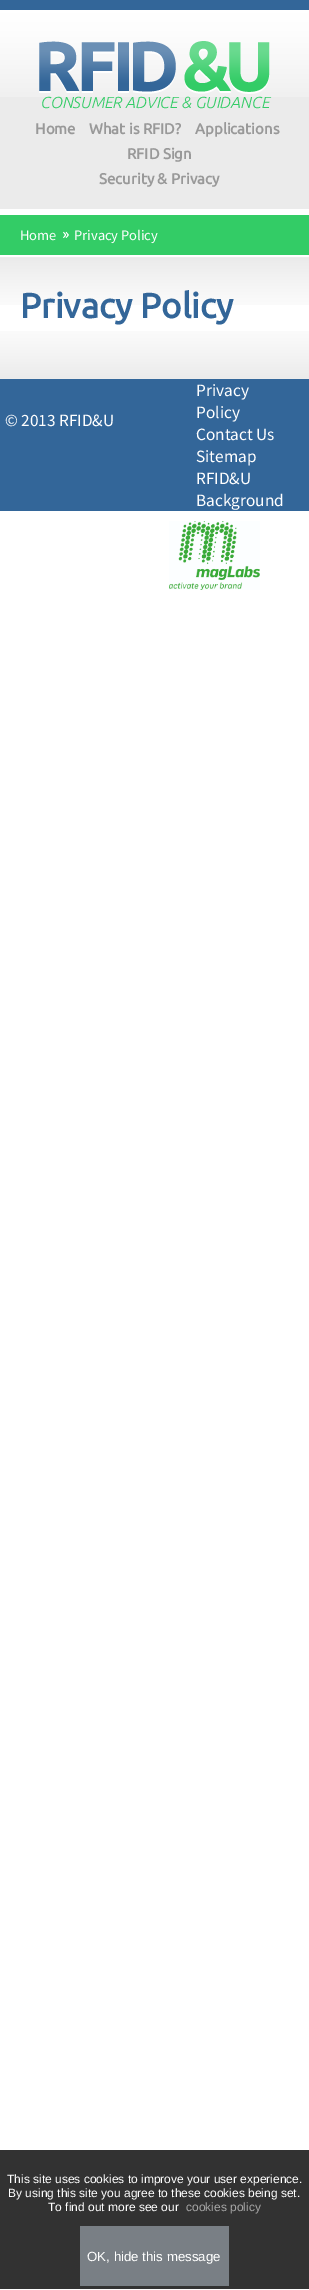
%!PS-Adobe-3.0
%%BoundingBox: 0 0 309 2290
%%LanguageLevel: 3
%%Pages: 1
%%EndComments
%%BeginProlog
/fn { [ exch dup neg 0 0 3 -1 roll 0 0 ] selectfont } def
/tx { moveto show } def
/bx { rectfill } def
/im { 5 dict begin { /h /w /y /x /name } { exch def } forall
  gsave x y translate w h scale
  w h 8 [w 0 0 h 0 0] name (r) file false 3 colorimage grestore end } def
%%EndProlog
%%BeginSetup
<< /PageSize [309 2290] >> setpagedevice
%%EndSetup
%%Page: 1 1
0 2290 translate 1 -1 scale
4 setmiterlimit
1 setgray
0 0 309 2290 bx
0.922 setgray
0 97 309 112 bx
(image0.raw) 0 0 309 97 im
(image1.raw) 39 41 231 53 im
/Ubuntu-LightItalic 16 fn
0.2 0.8 0.4 setrgbcolor
(CONSUMER ADVICE & GUIDANCE) 40 108 tx
/Ubuntu-Bold 15 fn
0.6 setgray
(Home) 35 134 tx
(What is RFID?) 89 134 tx
(Applications) 195 134 tx
(RFID Sign) 127 159 tx
(Security & Privacy) 99 184 tx
0.2 0.8 0.4 setrgbcolor
0 215 309 40 bx
/SourceSansPro-Regular 14.5 fn
1 setgray
(Home) 20 240 tx
(image2.raw) 63 231 6 7 im
(Privacy Policy) 74 240 tx
(image3.raw) 0 257 309 48 im
(image4.raw) 0 331 309 48 im
/Ubuntu-Bold 34.75 fn
0.2 0.4 0.6 setrgbcolor
(Privacy Policy) 20 318 tx
0 379 309 132 bx
/SourceSansPro-Regular 17.25 fn
1 setgray
(© 2013 RFID&U) 5 426 tx
(Privacy) 196 396 tx
(Policy) 196 418 tx
(Contact Us) 196 440 tx
(Sitemap) 196 462 tx
(RFID&U) 196 484 tx
(Background) 196 506 tx
(image5.raw) 169 521 91 69 im
0.196 setgray
0 2150 309 139 bx
/LiberationSans-Regular 12 fn
1 setgray
(This site uses cookies to improve your user experience.) 7 2183 tx
(By using this site you agree to these cookies being set.) 8 2197 tx
(To find out more see our) 48 2211 tx
0.651 setgray
(cookies policy) 186 2211 tx
0.475 0.498 0.522 setrgbcolor
80 2226 149 60 bx
/LiberationSans-Regular 13.25 fn
1 setgray
(OK, hide this message) 87 2261 tx
showpage
%%EOF
